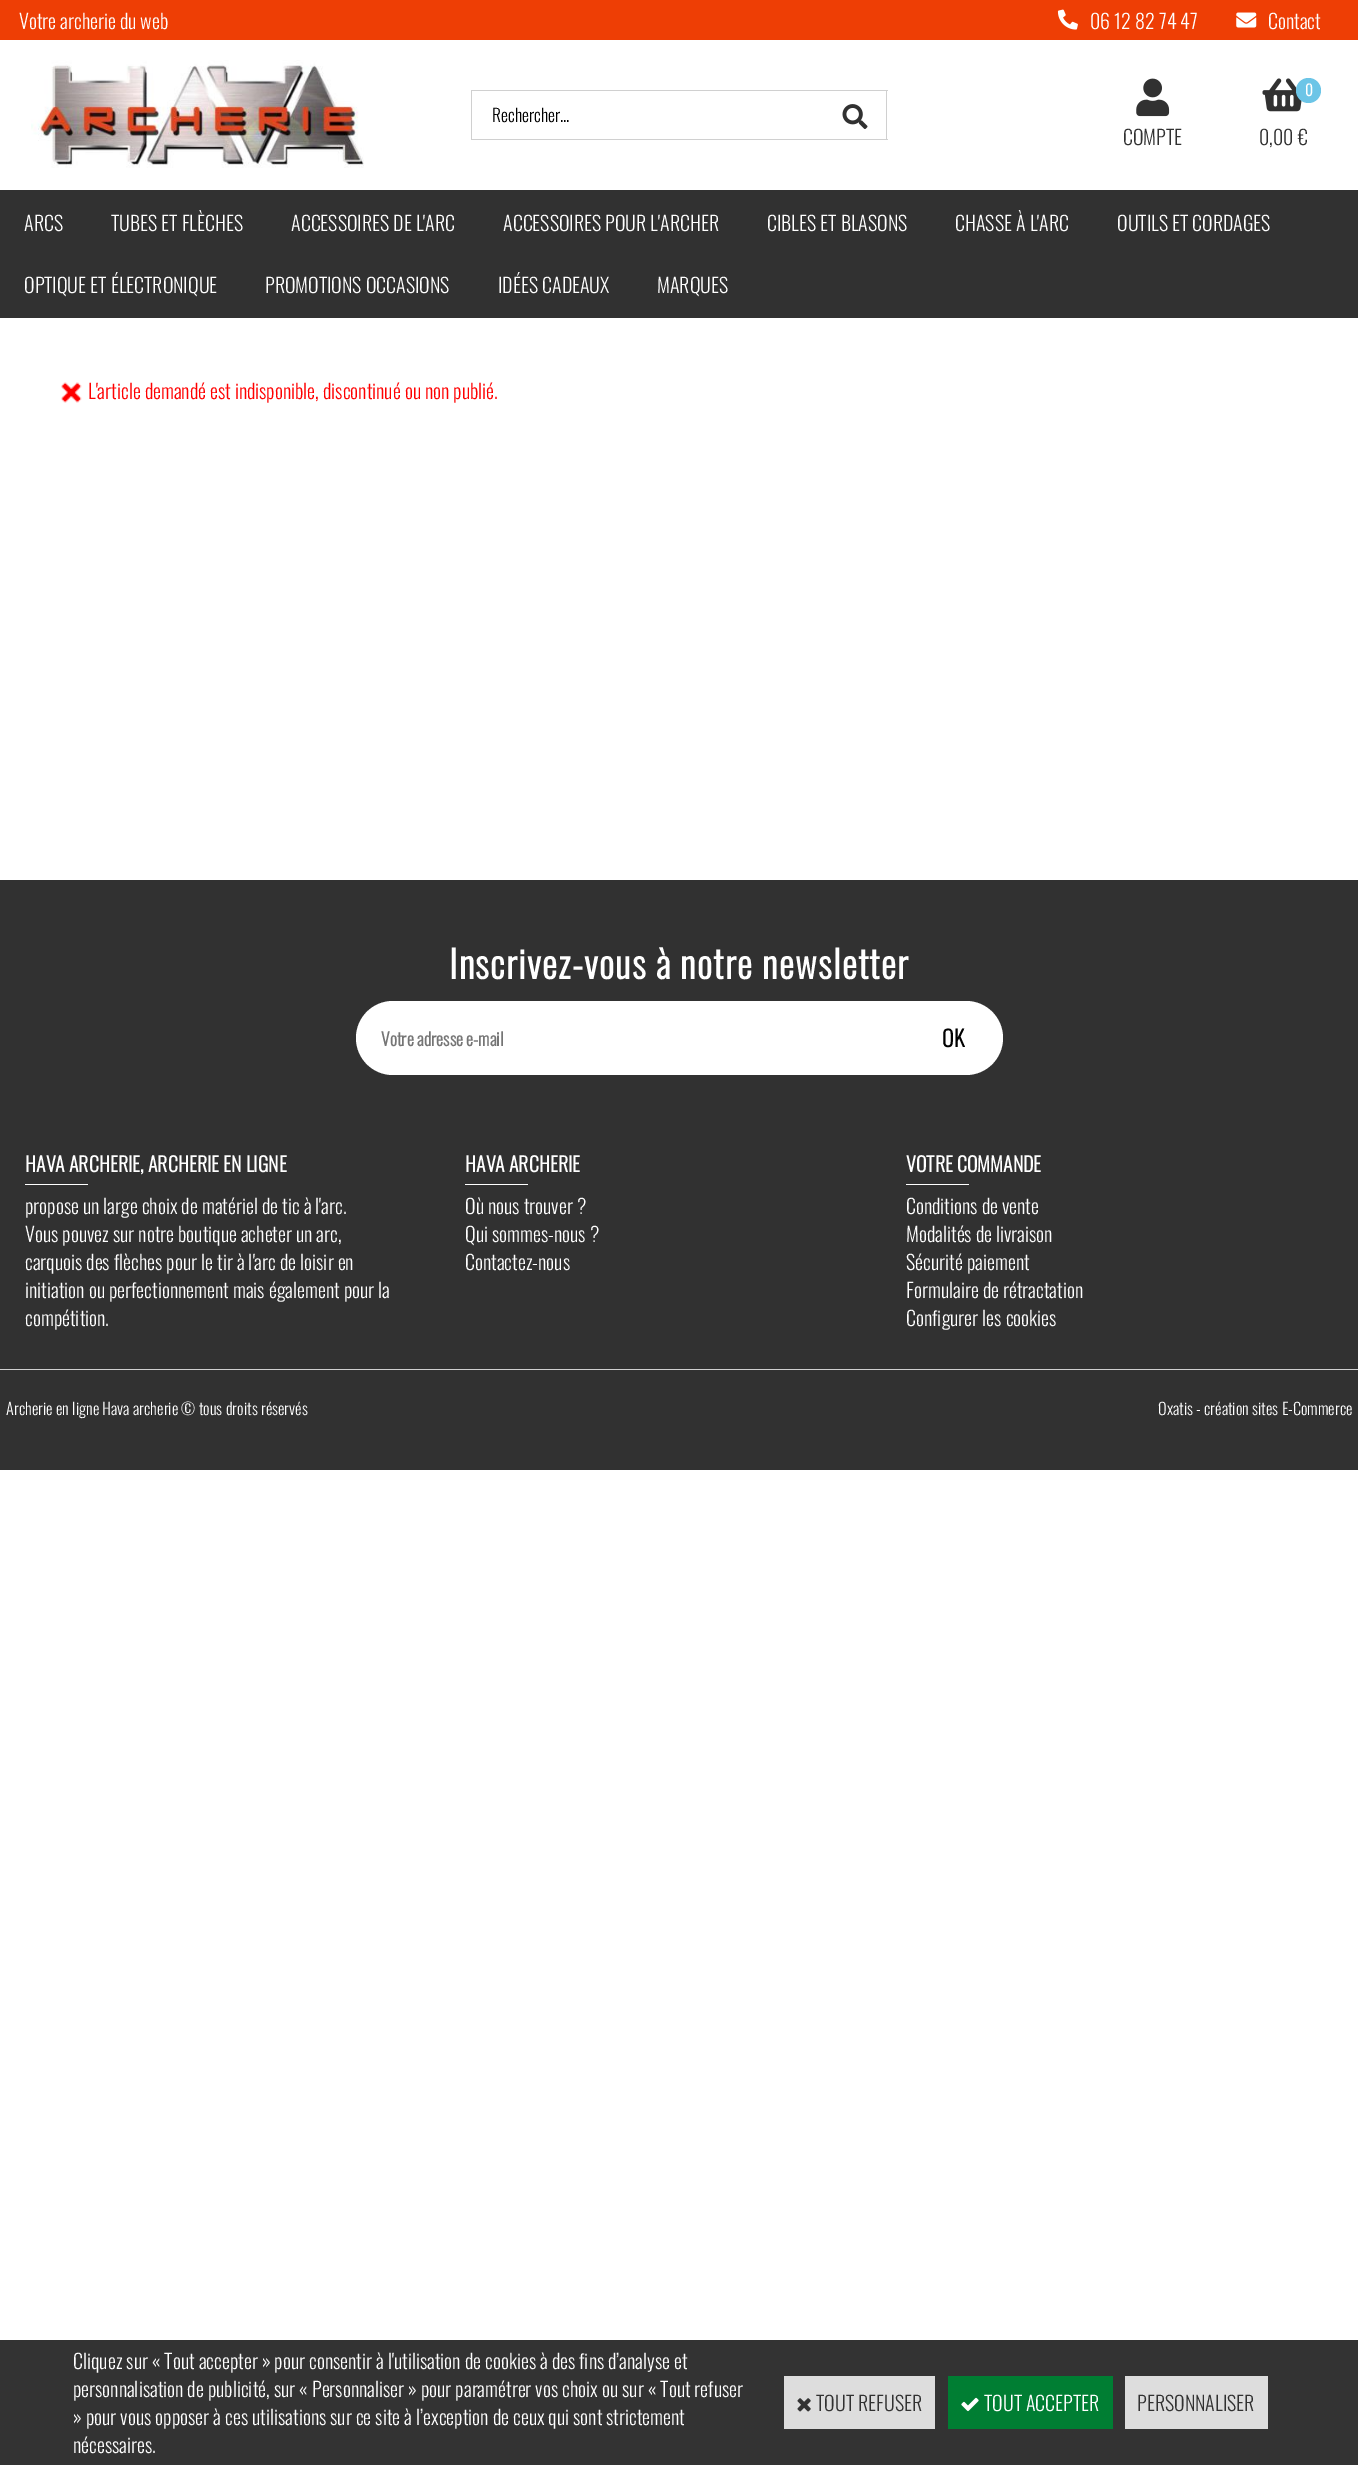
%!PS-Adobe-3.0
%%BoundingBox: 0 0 1358 2465
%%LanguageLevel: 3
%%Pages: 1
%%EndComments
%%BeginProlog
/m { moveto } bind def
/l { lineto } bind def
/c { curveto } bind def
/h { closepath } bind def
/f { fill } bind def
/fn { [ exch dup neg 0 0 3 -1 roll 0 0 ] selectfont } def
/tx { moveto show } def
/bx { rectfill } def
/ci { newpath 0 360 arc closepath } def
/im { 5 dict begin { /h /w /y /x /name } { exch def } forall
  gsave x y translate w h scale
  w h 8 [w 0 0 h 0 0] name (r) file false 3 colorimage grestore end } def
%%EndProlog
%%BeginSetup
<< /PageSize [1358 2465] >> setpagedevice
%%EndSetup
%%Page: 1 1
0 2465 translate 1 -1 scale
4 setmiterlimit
1 setgray
0 0 1358 2465 bx
0.933 0.243 0.02 setrgbcolor
0 0 1358 40 bx
/Oswald-Light 20 fn
1 setgray
(Votre archerie du web) 19 29 tx
(image0.raw) 1057 9 21 21 im
(06 12 82 74 47) 1090 29 tx
(image1.raw) 1236 12 21 16 im
(Contact) 1268 29 tx
(image2.raw) 31 60 333 108 im
0.816 setgray
471 90 417 1 bx
471 139 353 1 bx
471 90 1 50 bx
/Oswald-Light 17.5 fn
0 setgray
(Rechercher...) 492 122 tx
0.816 setgray
886 90 1 50 bx
824 139 64 1 bx
(image3.raw) 842 104 26 25 im
(image4.raw) 1136 78 34 39 im
/Oswald-Light 20 fn
0.192 setgray
(COMPTE) 1123 145 tx
(image5.raw) 1262 78 40 34 im
0.424 0.773 0.906 setrgbcolor
1308.5 90.5 12.5 ci f
/Oswald-Bold 15 fn
1 setgray
(0) 1305 96 tx
/Oswald-Light 20 fn
0.192 setgray
(0,00 €) 1259 145 tx
0 190 1358 128 bx
1 setgray
(ARCS) 24 231 tx
(TUBES ET FLÈCHES) 111 231 tx
(ACCESSOIRES DE L'ARC) 291 231 tx
(ACCESSOIRES POUR L'ARCHER) 503 231 tx
(CIBLES ET BLASONS) 767 231 tx
(CHASSE À L'ARC) 955 231 tx
(OUTILS ET CORDAGES) 1117 231 tx
(OPTIQUE ET ÉLECTRONIQUE) 24 293 tx
(PROMOTIONS OCCASIONS) 265 293 tx
(IDÉES CADEAUX) 498 293 tx
(MARQUES) 657 293 tx
(image6.raw) 61 382 21 21 im
1 0 0 setrgbcolor
(L'article demandé est indisponible, discontinué ou non publié.) 88 399 tx
0.192 setgray
0 880 1358 590 bx
/Oswald-Bold 37.5 fn
1 setgray
449 979 m 1.25 0 (Inscrivez-vous à notre newsletter) ashow
393 1001 m 906 1001 l 906 1075 l 393 1075 l 372.5 1075 356 1058.5 356 1038 c 356 1017.5 372.5 1001 393 1001 c h f
/Oswald-Bold 17.5 fn
0.459 setgray
(Votre adresse e-mail) 381 1046 tx
1 setgray
903 1001 m 966 1001 l 986.5 1001 1003 1017.5 1003 1038 c 1003 1058.5 986.5 1075 966 1075 c 903 1075 l h f
/Oswald-Bold 22 fn
0 setgray
(OK) 942 1047 tx
/Oswald-Bold 20 fn
1 setgray
(HAVA ARCHERIE, ARCHERIE EN LIGNE) 25 1172 tx
25 1184 63 1 bx
/Oswald-Light 20 fn
(propose un large choix de matériel de tic à l'arc.) 25 1214 tx
(Vous pouvez sur notre boutique acheter un arc,) 25 1242 tx
(carquois des flèches pour le tir à l'arc de loisir en) 25 1270 tx
(initiation ou perfectionnement mais également pour la) 25 1298 tx
(compétition.) 25 1326 tx
/Oswald-Bold 20 fn
(HAVA ARCHERIE) 465 1172 tx
465 1184 63 1 bx
/Oswald-Light 20 fn
(Où nous trouver ?) 465 1214 tx
(Qui sommes-nous ?) 465 1242 tx
(Contactez-nous) 465 1270 tx
/Oswald-Bold 20 fn
(VOTRE COMMANDE) 906 1172 tx
906 1184 63 1 bx
/Oswald-Light 20 fn
(Conditions de vente) 906 1214 tx
(Modalités de livraison) 906 1242 tx
(Sécurité paiement) 906 1270 tx
(Formulaire de rétractation) 906 1298 tx
(Configurer les cookies) 906 1326 tx
0.816 setgray
0 1369 1358 1 bx
/Oswald-Light 16.25 fn
1 setgray
(Archerie en ligne Hava archerie © tous droits réservés) 6 1415 tx
(Oxatis - création sites E-Commerce) 1158 1415 tx
0.2 setgray
0 2340 1358 125 bx
/Oswald-Light 20 fn
1 setgray
(Cliquez sur « Tout accepter » pour consentir à l'utilisation de cookies à des fins d’analyse et) 73 2369 tx
(personnalisation de publicité, sur « Personnaliser » pour paramétrer vos choix ou sur « Tout refuser) 73 2397 tx
(» pour vous opposer à ces utilisations sur ce site à l’exception de ceux qui sont strictement) 73 2425 tx
(nécessaires.) 73 2453 tx
0.867 setgray
784 2376 151 53 bx
(image7.raw) 797 2398 14 14 im
0.192 setgray
(TOUT REFUSER) 816 2411 tx
0 0.494 0.2 setrgbcolor
948 2376 165 53 bx
(image8.raw) 961 2397 18 15 im
1 setgray
(TOUT ACCEPTER) 984 2411 tx
0.867 setgray
1125 2376 143 53 bx
0.192 setgray
(PERSONNALISER) 1137 2411 tx
showpage
%%EOF
